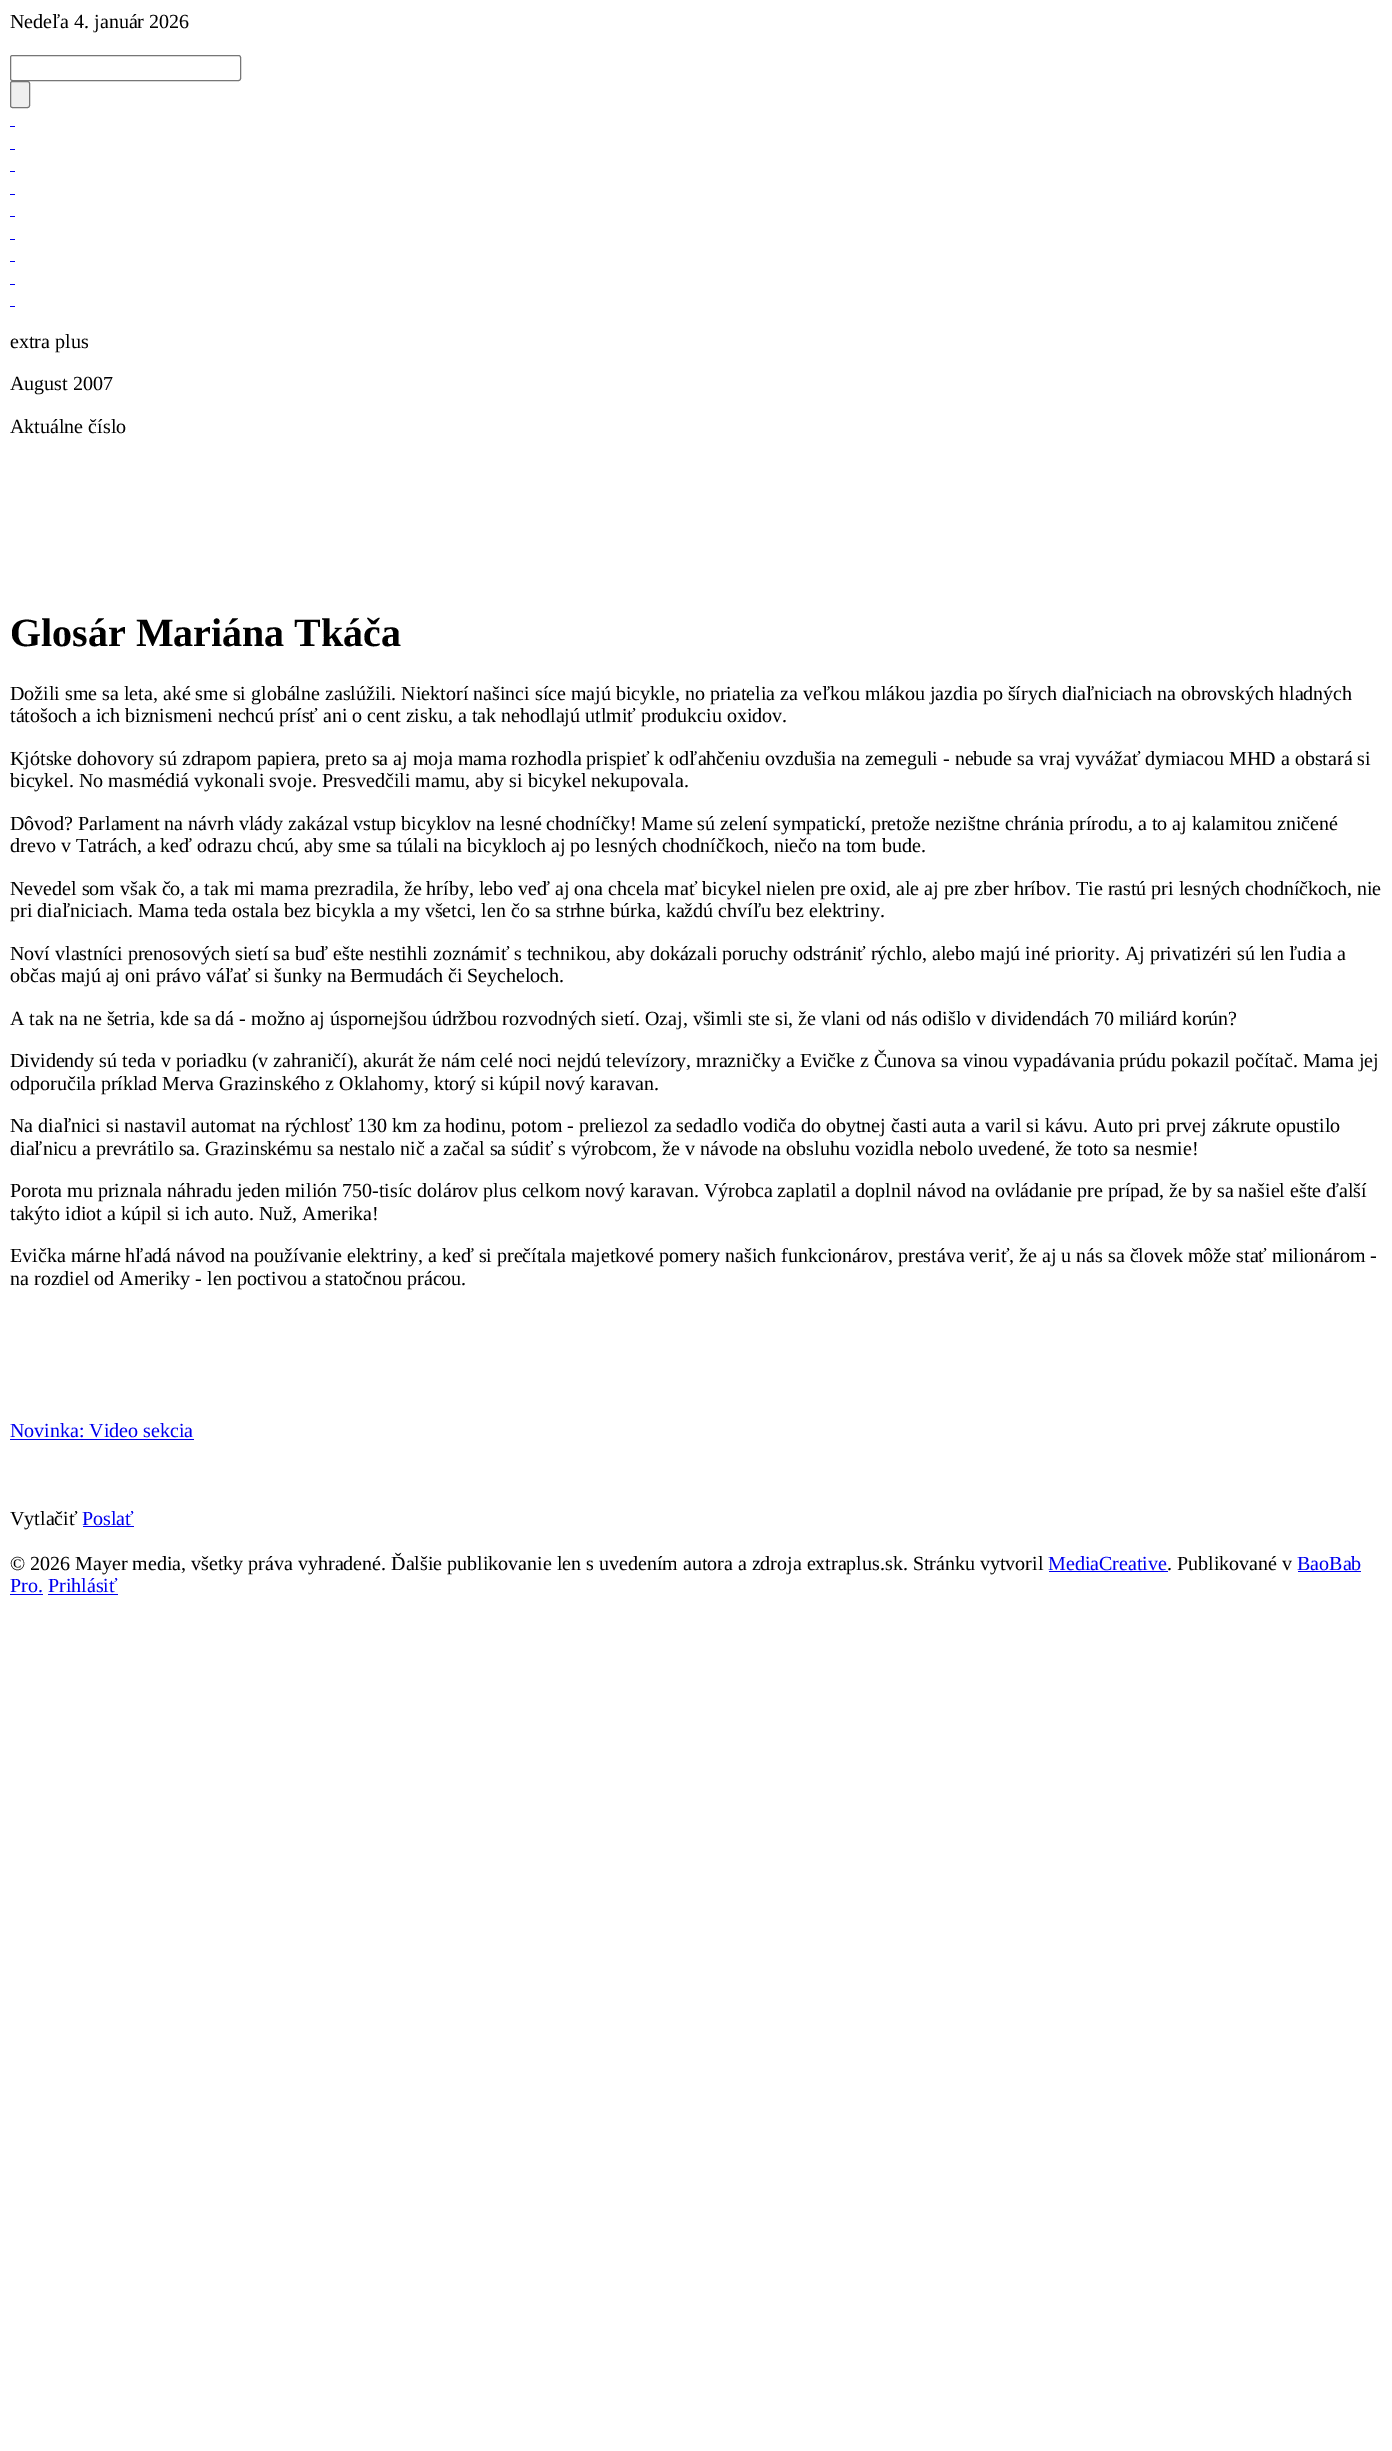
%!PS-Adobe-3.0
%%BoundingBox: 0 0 1392 2451
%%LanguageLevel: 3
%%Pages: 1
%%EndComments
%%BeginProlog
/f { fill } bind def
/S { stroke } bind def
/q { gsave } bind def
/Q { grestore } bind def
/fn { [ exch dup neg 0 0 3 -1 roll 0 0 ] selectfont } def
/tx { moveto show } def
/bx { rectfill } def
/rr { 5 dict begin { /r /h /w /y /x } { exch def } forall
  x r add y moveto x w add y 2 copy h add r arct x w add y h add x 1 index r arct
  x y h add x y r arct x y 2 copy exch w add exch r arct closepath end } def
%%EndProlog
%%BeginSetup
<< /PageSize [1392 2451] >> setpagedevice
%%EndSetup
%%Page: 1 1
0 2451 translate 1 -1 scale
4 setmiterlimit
1 setgray
0 0 1392 2451 bx
/LiberationSerif-Regular 20 fn
0 setgray
(Nedeľa 4. január 2026) 10 28 tx
0.463 setgray
10.5 55.5 230 25 2 rr S
0.937 setgray
10.5 81.5 19 26 2 rr q f Q
0.463 setgray
S
0 0 0.933 setrgbcolor
10 126 5 1 bx
10 149 5 1 bx
10 171 5 1 bx
10 194 5 1 bx
10 216 5 1 bx
10 239 5 1 bx
10 261 5 1 bx
10 284 5 1 bx
10 306 5 1 bx
0 setgray
(extra plus) 10 348 tx
(August 2007) 10 390 tx
(Aktuálne číslo) 10 433 tx
/LiberationSerif-Bold 40 fn
(Glosár Mariána Tkáča) 10 646 tx
/LiberationSerif-Regular 20 fn
(Dožili sme sa leta, aké sme si globálne zaslúžili. Niektorí našinci síce majú bicykle, no priatelia za veľkou mlákou jazdia po šírych diaľniciach na obrovských hladných) 10 700 tx
(tátošoch a ich biznismeni nechcú prísť ani o cent zisku, a tak nehodlajú utlmiť produkciu oxidov.) 10 722 tx
(Kjótske dohovory sú zdrapom papiera, preto sa aj moja mama rozhodla prispieť k odľahčeniu ovzdušia na zemeguli - nebude sa vraj vyvážať dymiacou MHD a obstará si) 10 765 tx
(bicykel. No masmédiá vykonali svoje. Presvedčili mamu, aby si bicykel nekupovala.) 10 787 tx
(Dôvod? Parlament na návrh vlády zakázal vstup bicyklov na lesné chodníčky! Mame sú zelení sympatickí, pretože nezištne chránia prírodu, a to aj kalamitou zničené) 10 830 tx
(drevo v Tatrách, a keď odrazu chcú, aby sme sa túlali na bicykloch aj po lesných chodníčkoch, niečo na tom bude.) 10 852 tx
(Nevedel som však čo, a tak mi mama prezradila, že hríby, lebo veď aj ona chcela mať bicykel nielen pre oxid, ale aj pre zber hríbov. Tie rastú pri lesných chodníčkoch, nie) 10 895 tx
(pri diaľniciach. Mama teda ostala bez bicykla a my všetci, len čo sa strhne búrka, každú chvíľu bez elektriny.) 10 917 tx
(Noví vlastníci prenosových sietí sa buď ešte nestihli zoznámiť s technikou, aby dokázali poruchy odstrániť rýchlo, alebo majú iné priority. Aj privatizéri sú len ľudia a) 10 960 tx
(občas majú aj oni právo váľať si šunky na Bermudách či Seycheloch.) 10 982 tx
(A tak na ne šetria, kde sa dá - možno aj úspornejšou údržbou rozvodných sietí. Ozaj, všimli ste si, že vlani od nás odišlo v dividendách 70 miliárd korún?) 10 1025 tx
(Dividendy sú teda v poriadku \(v zahraničí\), akurát že nám celé noci nejdú televízory, mrazničky a Evičke z Čunova sa vinou vypadávania prúdu pokazil počítač. Mama jej) 10 1067 tx
(odporučila príklad Merva Grazinského z Oklahomy, ktorý si kúpil nový karavan.) 10 1090 tx
(Na diaľnici si nastavil automat na rýchlosť 130 km za hodinu, potom - preliezol za sedadlo vodiča do obytnej časti auta a varil si kávu. Auto pri prvej zákrute opustilo) 10 1132 tx
(diaľnicu a prevrátilo sa. Grazinskému sa nestalo nič a začal sa súdiť s výrobcom, že v návode na obsluhu vozidla nebolo uvedené, že toto sa nesmie!) 10 1155 tx
(Porota mu priznala náhradu jeden milión 750-tisíc dolárov plus celkom nový karavan. Výrobca zaplatil a doplnil návod na ovládanie pre prípad, že by sa našiel ešte ďalší) 10 1197 tx
(takýto idiot a kúpil si ich auto. Nuž, Amerika!) 10 1220 tx
(Evička márne hľadá návod na používanie elektriny, a keď si prečítala majetkové pomery našich funkcionárov, prestáva veriť, že aj u nás sa človek môže stať milionárom -) 10 1262 tx
(na rozdiel od Ameriky - len poctivou a statočnou prácou.) 10 1285 tx
0 0 0.933 setrgbcolor
(Novinka: Video sekcia) 10 1437 tx
10 1439 184 1 bx
0 setgray
(Vytlačiť) 10 1525 tx
0 0 0.933 setrgbcolor
(Poslať) 82 1525 tx
83 1526 51 1 bx
0 setgray
(© 2026 Mayer media, všetky práva vyhradené. Ďalšie publikovanie len s uvedením autora a zdroja extraplus.sk. Stránku vytvoril) 10 1570 tx
0 0 0.933 setrgbcolor
(MediaCreative) 1048 1570 tx
1049 1571 119 1 bx
0 setgray
(. Publikované v) 1167 1570 tx
0 0 0.933 setrgbcolor
(BaoBab) 1297 1570 tx
1298 1571 63 1 bx
(Pro. Prihlásiť) 10 1592 tx
10 1594 33 1 bx
48 1594 70 1 bx
showpage
%%EOF
